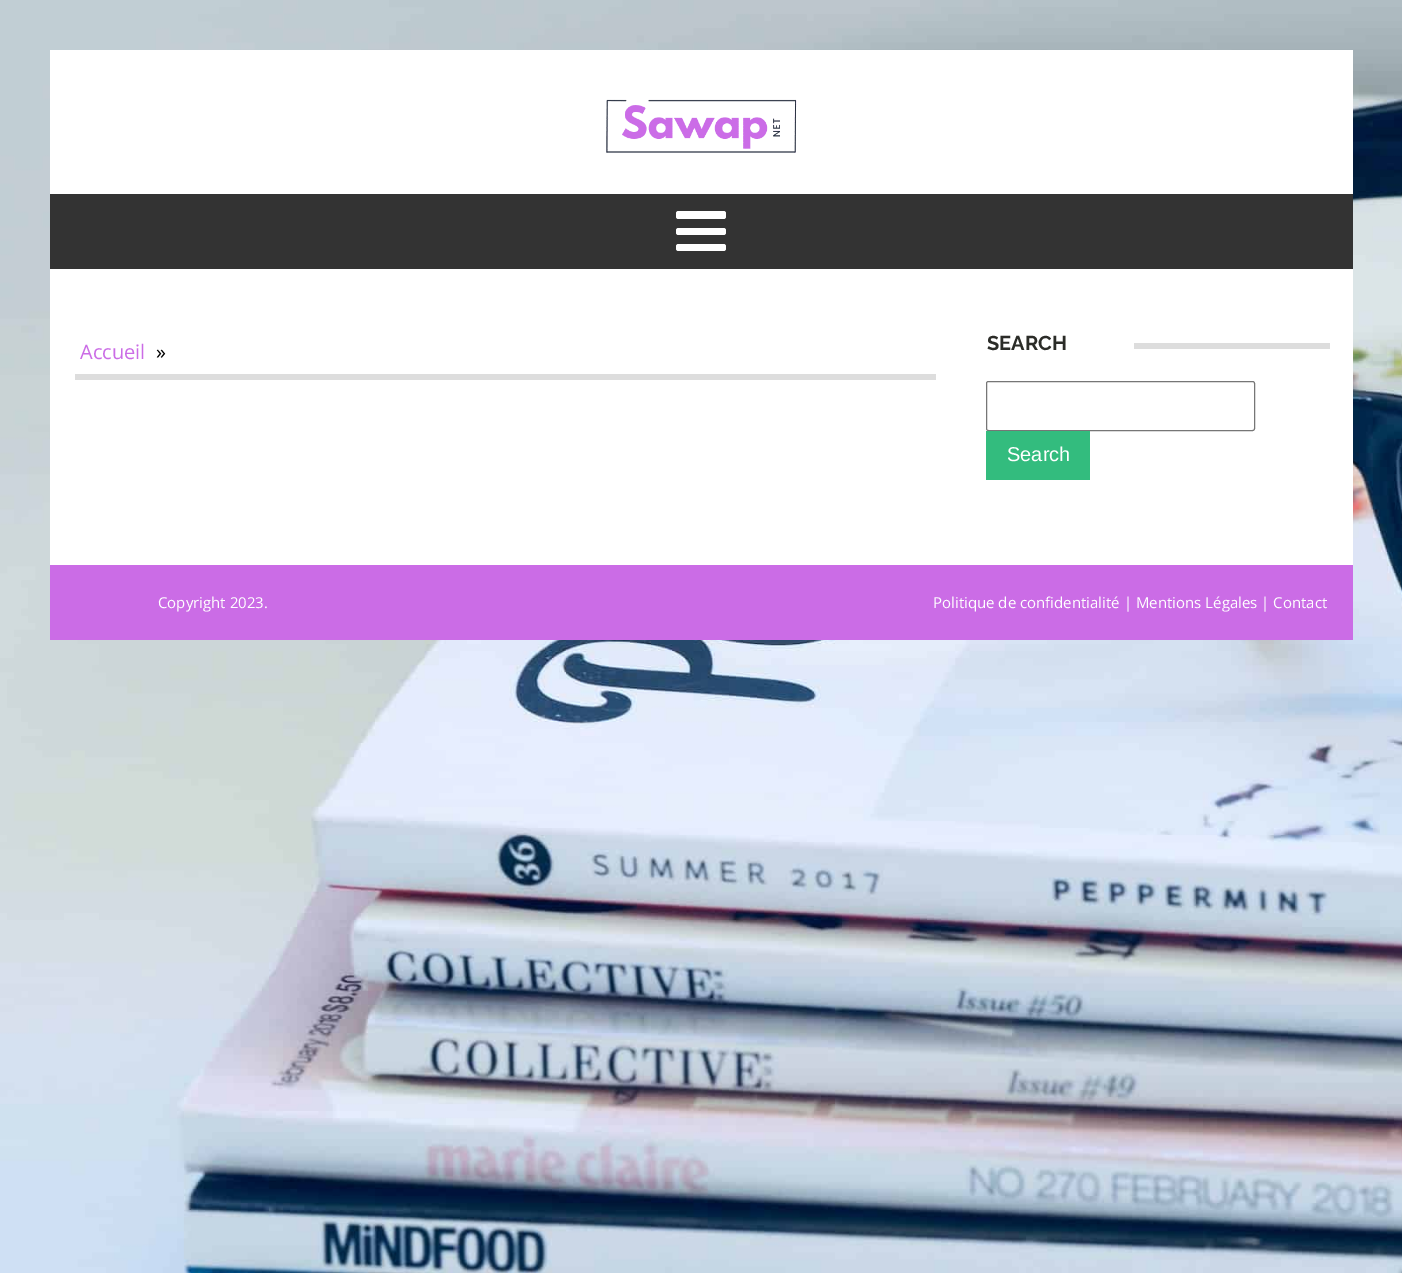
%!PS-Adobe-3.0
%%BoundingBox: 0 0 1402 1273
%%LanguageLevel: 3
%%Pages: 1
%%EndComments
%%BeginProlog
/f { fill } bind def
/S { stroke } bind def
/fn { [ exch dup neg 0 0 3 -1 roll 0 0 ] selectfont } def
/tx { moveto show } def
/bx { rectfill } def
/rr { 5 dict begin { /r /h /w /y /x } { exch def } forall
  x r add y moveto x w add y 2 copy h add r arct x w add y h add x 1 index r arct
  x y h add x y r arct x y 2 copy exch w add exch r arct closepath end } def
/im { 5 dict begin { /h /w /y /x /name } { exch def } forall
  gsave x y translate w h scale
  w h 8 [w 0 0 h 0 0] name (r) file false 3 colorimage grestore end } def
%%EndProlog
%%BeginSetup
<< /PageSize [1402 1273] >> setpagedevice
%%EndSetup
%%Page: 1 1
0 1273 translate 1 -1 scale
4 setmiterlimit
1 setgray
0 0 1402 1273 bx
(image0.raw) 0 0 1402 1273 im
50 50 1303 515 bx
(image1.raw) 606 99 191 54 im
0.2 setgray
50 194 1303 75 bx
1 setgray
676 211 50 8 2.5 rr f
676 228 50 7 2.5 rr f
676 244 50 7 2.5 rr f
/OpenSans-Regular 20 fn
0.796 0.424 0.902 setrgbcolor
(Accueil) 80 359 tx
0 setgray
(») 156 359 tx
0.867 setgray
75 374 861 6 bx
/Raleway-Bold 20 fn
0.169 0.173 0.157 setrgbcolor
(SEARCH) 987 350 tx
0.867 setgray
1134 343 196 6 bx
0.463 setgray
986.5 381.5 268 49 2 rr S
0.2 0.737 0.494 setrgbcolor
986 431 104 49 bx
/LiberationSans-Regular 20 fn
1 setgray
(Search) 1007 461 tx
0.796 0.424 0.902 setrgbcolor
50 565 1303 75 bx
/OpenSans-Regular 15 fn
1 setgray
(Copyright 2023.) 158 608 tx
(Politique de confidentialité | Mentions Légales | Contact) 933 608 tx
showpage
%%EOF
